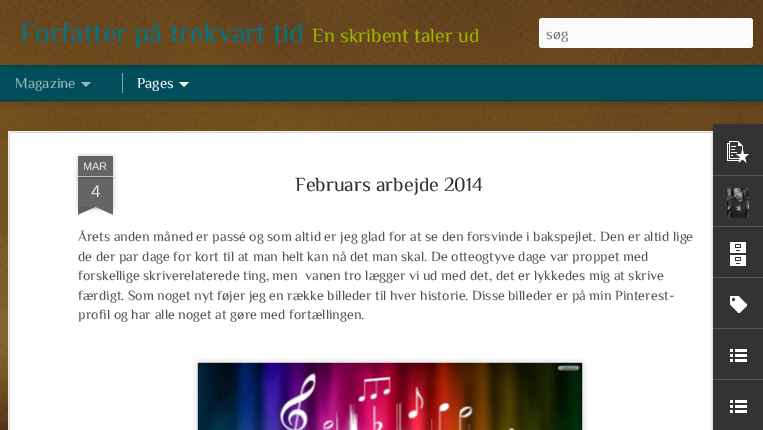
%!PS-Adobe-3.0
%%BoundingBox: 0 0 763 430
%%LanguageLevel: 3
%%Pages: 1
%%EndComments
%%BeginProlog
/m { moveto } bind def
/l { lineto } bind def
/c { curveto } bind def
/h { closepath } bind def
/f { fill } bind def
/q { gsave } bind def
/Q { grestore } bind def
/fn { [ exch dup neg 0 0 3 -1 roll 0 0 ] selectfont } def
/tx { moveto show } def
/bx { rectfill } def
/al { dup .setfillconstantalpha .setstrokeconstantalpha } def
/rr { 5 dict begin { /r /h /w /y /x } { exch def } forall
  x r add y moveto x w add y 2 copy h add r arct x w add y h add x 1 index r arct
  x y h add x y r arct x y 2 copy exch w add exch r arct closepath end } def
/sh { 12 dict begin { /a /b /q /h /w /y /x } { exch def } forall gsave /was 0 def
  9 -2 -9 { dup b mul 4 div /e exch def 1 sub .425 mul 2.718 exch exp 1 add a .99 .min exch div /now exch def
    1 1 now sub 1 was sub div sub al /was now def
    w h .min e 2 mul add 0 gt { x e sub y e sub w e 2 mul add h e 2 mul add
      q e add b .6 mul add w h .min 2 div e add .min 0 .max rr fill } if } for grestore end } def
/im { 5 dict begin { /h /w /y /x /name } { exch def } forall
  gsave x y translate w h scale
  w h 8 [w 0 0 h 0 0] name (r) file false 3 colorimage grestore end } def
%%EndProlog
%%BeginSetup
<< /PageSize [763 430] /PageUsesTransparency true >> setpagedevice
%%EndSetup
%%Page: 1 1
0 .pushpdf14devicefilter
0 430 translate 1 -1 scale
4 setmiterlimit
0 0.306 0.357 setrgbcolor
0 0 763 430 bx
(image1.raw) 0 101 763 329 im
0 setgray
0 65 763 35 0 4 0.5 sh
0 0.306 0.357 setrgbcolor
0 65 763 35 bx
0.502 0.655 0.678 setrgbcolor
122 73 1 20 bx
0 setgray
0 0 763 65 0 2.5 0.3 sh
(image0.raw) 0 0 763 65 im
/Philosopher-Regular 28 fn
0 0.459 0.533 setrgbcolor
(Forfatter på trekvart tid) 20 42 tx
/Philosopher-Regular 20 fn
0.612 0.714 0 setrgbcolor
(En skribent taler ud) 312 42 tx
0.98 setgray
539 18 214 30 3 rr f
/Philosopher-Regular 15 fn
0.459 setgray
(søg) 546 39 tx
0.6 0.722 0.741 setrgbcolor
(Magazine) 15 88 tx
81 82 m 91 82 l 86 87 l h f
1 setgray
(Pages) 137 88 tx
179 82 m 189 82 l 184 87 l h f
8 131 705 299 bx
(image2.raw) 8 131 705 299 im
0 setgray
78 177 35 30 0 2.5 0.2 sh
0.396 setgray
78 177 35 30 bx
0 setgray
78 156 35 21 1 2.5 0.2 sh
0.396 setgray
79 156 m 112 156 l 112.5 156 113 156.5 113 157 c 113 177 l 78 177 l 78 157 l 78 156.5 78.5 156 79 156 c h f
0.757 setgray
78 176 35 1 bx
/LiberationSans-Regular 11 fn
0.933 setgray
(MAR) 83 170 tx
/LiberationSans-Regular 17 fn
(4) 91 197 tx
q
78 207 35 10 rectclip
0 setgray
69 197 50 10 0 2.5 0.2 sh
Q
q
78 207 35 10 rectclip
0.396 setgray
69 208 m 115 187 l 119 196 l 73 217 l h f
Q
q
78 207 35 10 rectclip
0 setgray
72 197 50 10 0 2.5 0.2 sh
Q
q
78 207 35 10 rectclip
0.396 setgray
76 187 m 122 208 l 118 217 l 72 196 l h f
Q
/Philosopher-Regular 20 fn
0.184 setgray
(Februars arbejde 2014) 295 191 tx
/Philosopher-Regular 14 fn
0.325 setgray
(Årets anden måned er passé og som altid er jeg glad for at se den forsvinde i bakspejlet. Den er altid lige) 78 241 tx
(de der par dage for kort til at man helt kan nå det man skal. De otteogtyve dage var proppet med) 78 261 tx
(forskellige skriverelaterede ting, men  vanen tro lægger vi ud med det, det er lykkedes mig at skrive) 78 280 tx
(færdigt. Som noget nyt føjer jeg en række billeder til hver historie. Disse billeder er på min Pinterest-) 78 300 tx
(profil og har alle noget at gøre med fortællingen.) 78 319 tx
(image3.raw) 193 358 394 72 im
(image4.raw) 197 362 386 68 im
0 setgray
713 125 50 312 2 1.5 0.3 sh
0.2 setgray
715 124 m 763 124 l 763 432 l 715 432 l 714 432 713 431 713 430 c 713 126 l 713 125 714 124 715 124 c h f
715 124 m 763 124 l 763 175 l 713 175 l 713 126 l 713 125 714 124 715 124 c h f
(image5.raw) 727 141 22 22 im
0.345 setgray
713 175 50 1 bx
(image6.raw) 727 188 22 30 im
713 226 50 1 bx
(image7.raw) 730 242 16 24 im
713 277 50 1 bx
(image8.raw) 730 296 17 17 im
713 328 50 1 bx
(image9.raw) 730 349 17 13 im
713 379 50 1 bx
(image9.raw) 730 400 17 13 im
.poppdf14devicefilter showpage
%%EOF
